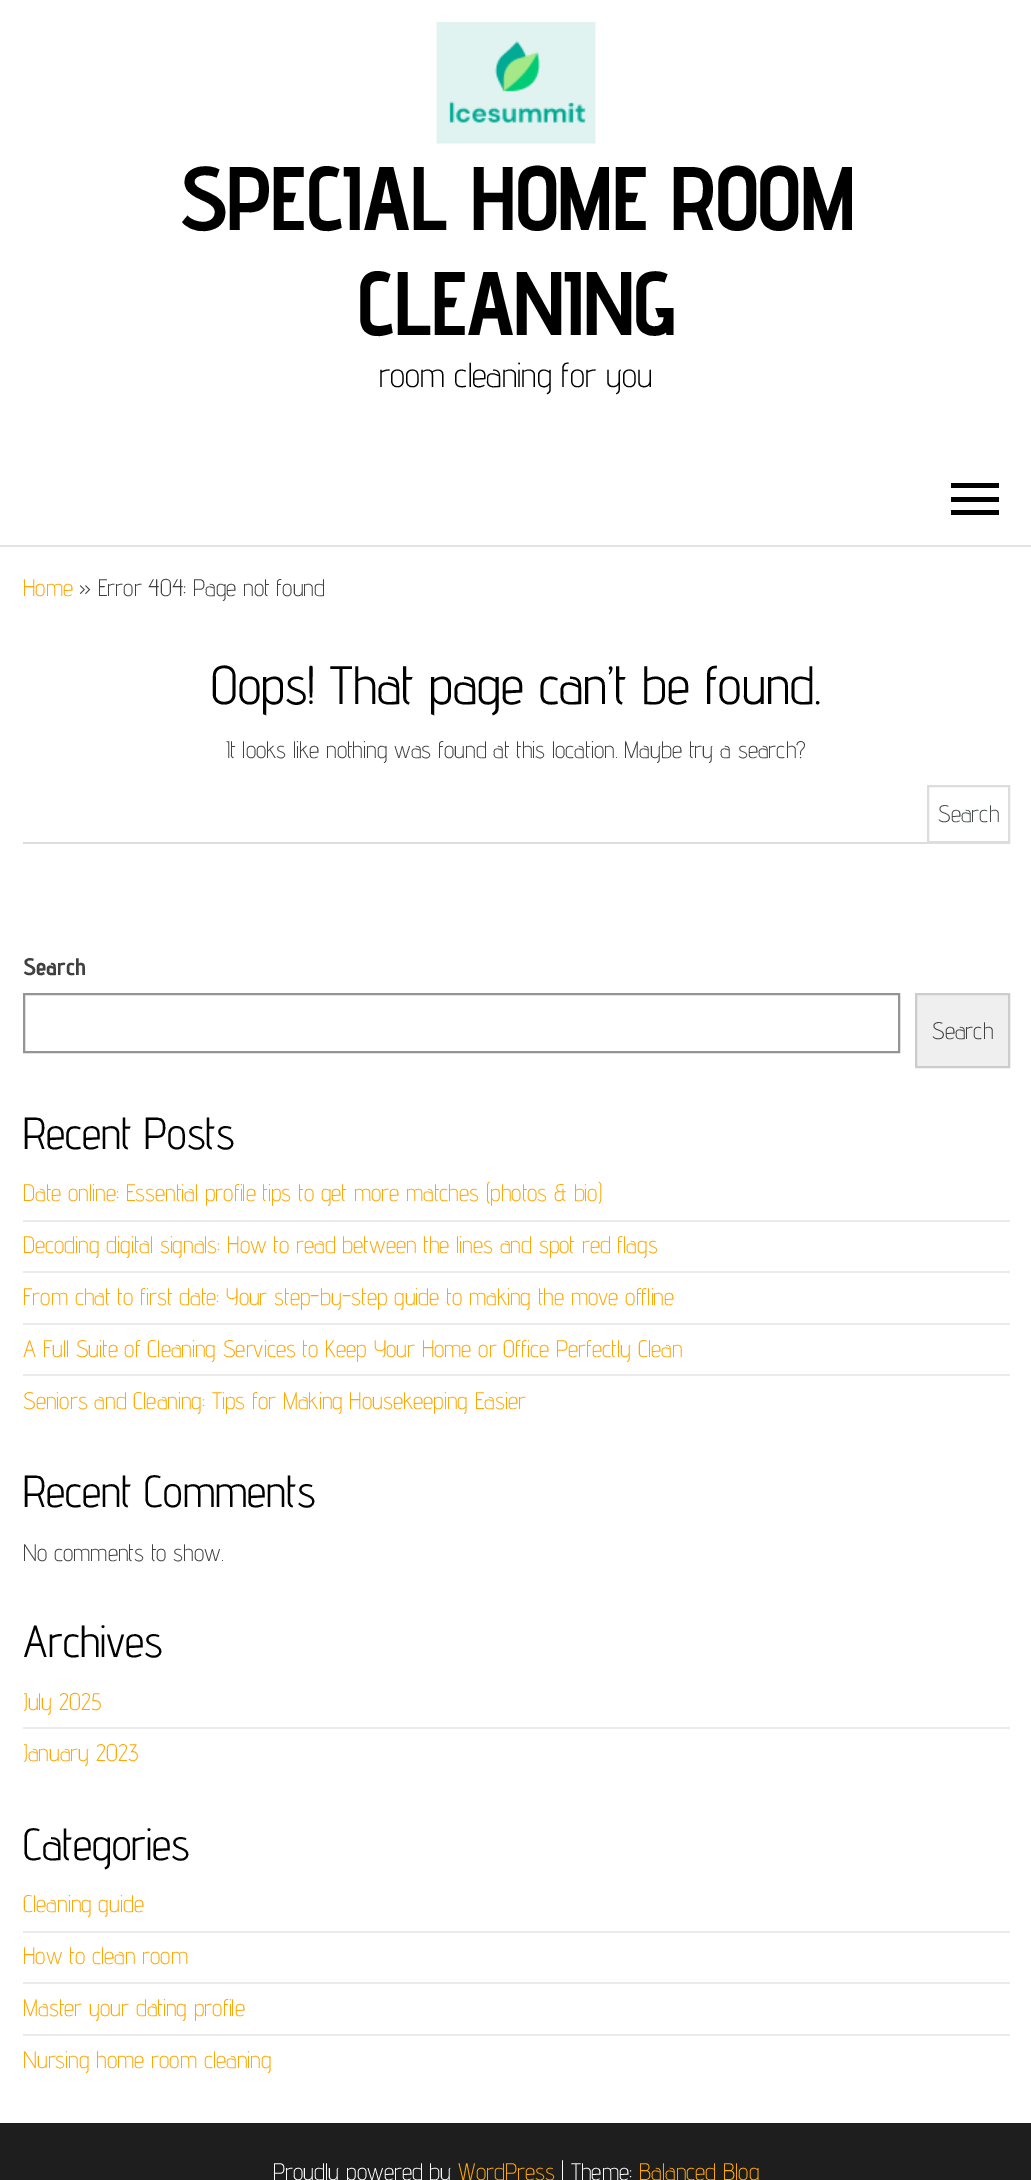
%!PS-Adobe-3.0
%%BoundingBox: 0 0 1031 2180
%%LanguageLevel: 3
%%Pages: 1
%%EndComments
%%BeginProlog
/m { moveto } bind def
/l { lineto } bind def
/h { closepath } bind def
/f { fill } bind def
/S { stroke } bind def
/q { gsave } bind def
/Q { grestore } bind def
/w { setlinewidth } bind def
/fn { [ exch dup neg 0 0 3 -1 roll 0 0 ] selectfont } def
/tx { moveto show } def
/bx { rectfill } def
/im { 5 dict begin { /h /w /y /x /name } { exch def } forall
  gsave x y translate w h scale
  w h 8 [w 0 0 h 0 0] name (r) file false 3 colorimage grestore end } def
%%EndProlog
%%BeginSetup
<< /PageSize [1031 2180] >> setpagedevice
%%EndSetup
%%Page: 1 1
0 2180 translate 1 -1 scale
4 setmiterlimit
1 setgray
0 0 1031 2180 bx
(image0.raw) 436 22 160 122 im
/AdventPro-Bold 90 fn
0 setgray
179 230 m -1.75 0 (SPECIAL HOME ROOM) ashow
357 335 m -1.75 0 (CLEANING) ashow
/AdventPro-Light 34.5 fn
(room cleaning for you) 379 387 tx
0.89 setgray
0 545 1031 2 bx
0 setgray
951 483 48 5 bx
951 497 48 5 bx
951 510 48 5 bx
/AdventPro-Light 24 fn
1 0.655 0 setrgbcolor
(Home) 23 596 tx
0.251 setgray
(» Error 404: Page not found) 79 596 tx
/AdventPro-Regular 54 fn
0 setgray
(Oops! That page can’t be found.) 211 704 tx
/AdventPro-Light 24 fn
0.251 setgray
(It looks like nothing was found at this location. Maybe try a search?) 226 758 tx
0.867 setgray
23 842 987 2 bx
2 w
928 786 81 56 rectstroke
0.275 0.29 0.298 setrgbcolor
(Search) 938 822 tx
/AdventPro-Bold 24 fn
0.251 setgray
(Search) 23 975 tx
0.58 setgray
24 994 875 58 rectstroke
0.937 setgray
916 994 m 1009 994 l 1009 1067 l 916 1067 l h q f Q
0.8 setgray
S
/AdventPro-Light 24 fn
0.251 setgray
(Search) 932 1039 tx
/AdventPro-Regular 45 fn
0 setgray
(Recent Posts) 23 1149 tx
0.922 setgray
23 1220 987 2 bx
/AdventPro-Light 24 fn
1 0.655 0 setrgbcolor
(Date online: Essential profile tips to get more matches \(photos & bio\)) 23 1201 tx
0.922 setgray
23 1271 987 2 bx
1 0.655 0 setrgbcolor
(Decoding digital signals: How to read between the lines and spot red flags) 23 1253 tx
0.922 setgray
23 1323 987 2 bx
1 0.655 0 setrgbcolor
(From chat to first date: Your step-by-step guide to making the move offline) 23 1305 tx
0.922 setgray
23 1374 987 2 bx
1 0.655 0 setrgbcolor
(A Full Suite of Cleaning Services to Keep Your Home or Office Perfectly Clean) 23 1357 tx
(Seniors and Cleaning: Tips for Making Housekeeping Easier) 23 1409 tx
/AdventPro-Regular 45 fn
0 setgray
(Recent Comments) 23 1507 tx
/AdventPro-Light 24 fn
0.251 setgray
(No comments to show.) 23 1561 tx
/AdventPro-Regular 45 fn
0 setgray
(Archives) 23 1657 tx
0.922 setgray
23 1727 987 2 bx
/AdventPro-Light 24 fn
1 0.655 0 setrgbcolor
(July 2025) 23 1710 tx
(January 2023) 23 1761 tx
/AdventPro-Regular 45 fn
0 setgray
(Categories) 23 1860 tx
0.922 setgray
23 1931 987 2 bx
/AdventPro-Light 24 fn
1 0.655 0 setrgbcolor
(Cleaning guide) 23 1912 tx
0.922 setgray
23 1982 987 2 bx
1 0.655 0 setrgbcolor
(How to clean room) 23 1964 tx
0.922 setgray
23 2034 987 2 bx
1 0.655 0 setrgbcolor
(Master your dating profile) 23 2016 tx
(Nursing home room cleaning) 23 2068 tx
0.118 setgray
0 2123 1031 57 bx
1 setgray
(Proudly powered by) 273 2180 tx
1 0.655 0 setrgbcolor
(WordPress) 458 2180 tx
1 setgray
(| Theme:) 561 2180 tx
1 0.655 0 setrgbcolor
(Balanced Blog) 639 2180 tx
showpage
%%EOF
